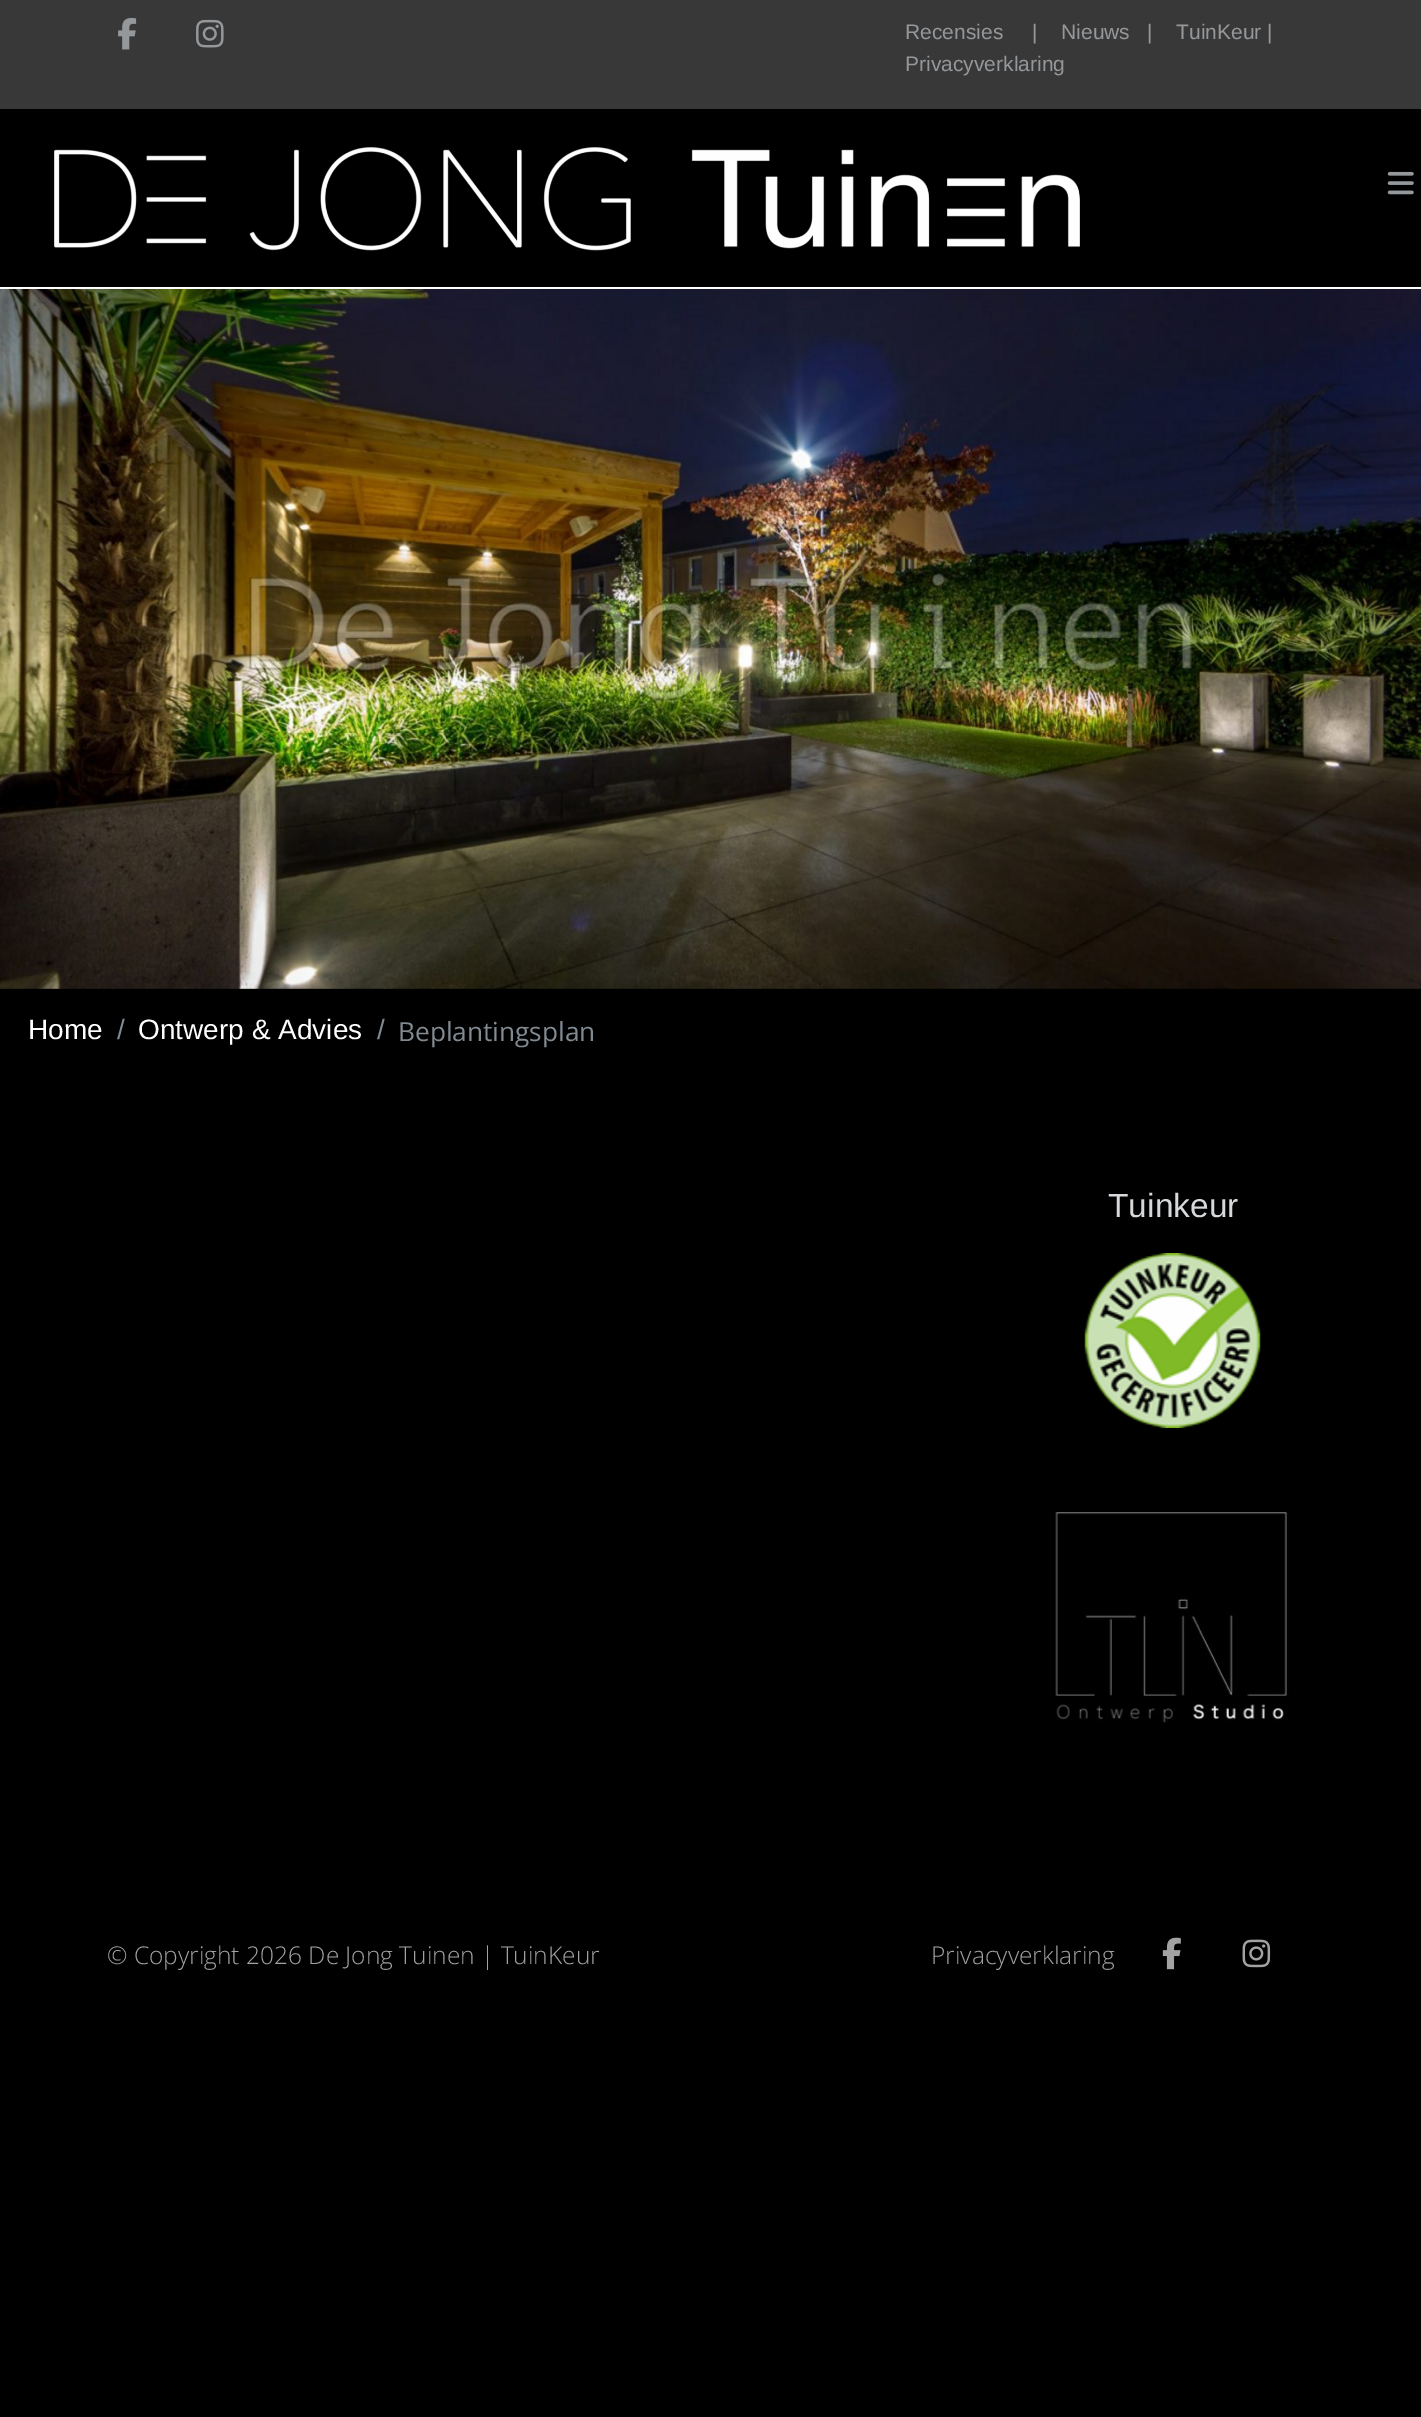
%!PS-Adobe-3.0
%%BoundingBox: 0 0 1421 2417
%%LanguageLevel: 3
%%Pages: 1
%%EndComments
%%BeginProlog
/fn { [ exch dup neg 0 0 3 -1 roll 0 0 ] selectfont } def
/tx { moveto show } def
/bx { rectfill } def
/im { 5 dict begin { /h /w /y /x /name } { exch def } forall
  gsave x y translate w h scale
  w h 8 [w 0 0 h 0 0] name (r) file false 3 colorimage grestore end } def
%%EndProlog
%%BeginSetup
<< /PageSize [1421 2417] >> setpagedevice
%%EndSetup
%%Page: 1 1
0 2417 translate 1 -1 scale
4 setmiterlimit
0 setgray
0 0 1421 2417 bx
0.224 0.22 0.22 setrgbcolor
0 0 1421 109 bx
(image0.raw) 118 17 19 33 im
(image1.raw) 196 19 28 29 im
/LiberationSans-Regular 21 fn
0.584 0.596 0.604 setrgbcolor
(Recensies) 905 39 tx
(|) 1032 39 tx
(Nieuws   |) 1061 39 tx
(TuinKeur |) 1176 39 tx
(Privacyverklaring) 905 71 tx
1 setgray
0 287 1421 2 bx
(image2.raw) 54 147 1026 104 im
(image3.raw) 1387 171 27 24 im
(image4.raw) 0 289 1421 700 im
/LiberationSans-Regular 28 fn
(Home) 28 1039 tx
0.506 0.541 0.569 setrgbcolor
(/) 117 1039 tx
1 setgray
(Ontwerp & Advies) 138 1039 tx
0.506 0.541 0.569 setrgbcolor
(/) 377 1039 tx
/OpenSans-Regular 26.25 fn
(Beplantingsplan) 398 1041 tx
/LiberationSans-Regular 33.5 fn
0.839 0.847 0.859 setrgbcolor
(Tuinkeur) 1108 1217 tx
(image5.raw) 1084 1253 177 175 im
(image6.raw) 1055 1512 234 211 im
/OpenSans-Light 24.5 fn
0.635 setgray
(© Copyright 2026 De Jong Tuinen | TuinKeur) 107 1964 tx
(Privacyverklaring) 931 1964 tx
(image7.raw) 1162 1937 19 33 im
(image8.raw) 1242 1939 29 29 im
showpage
%%EOF
